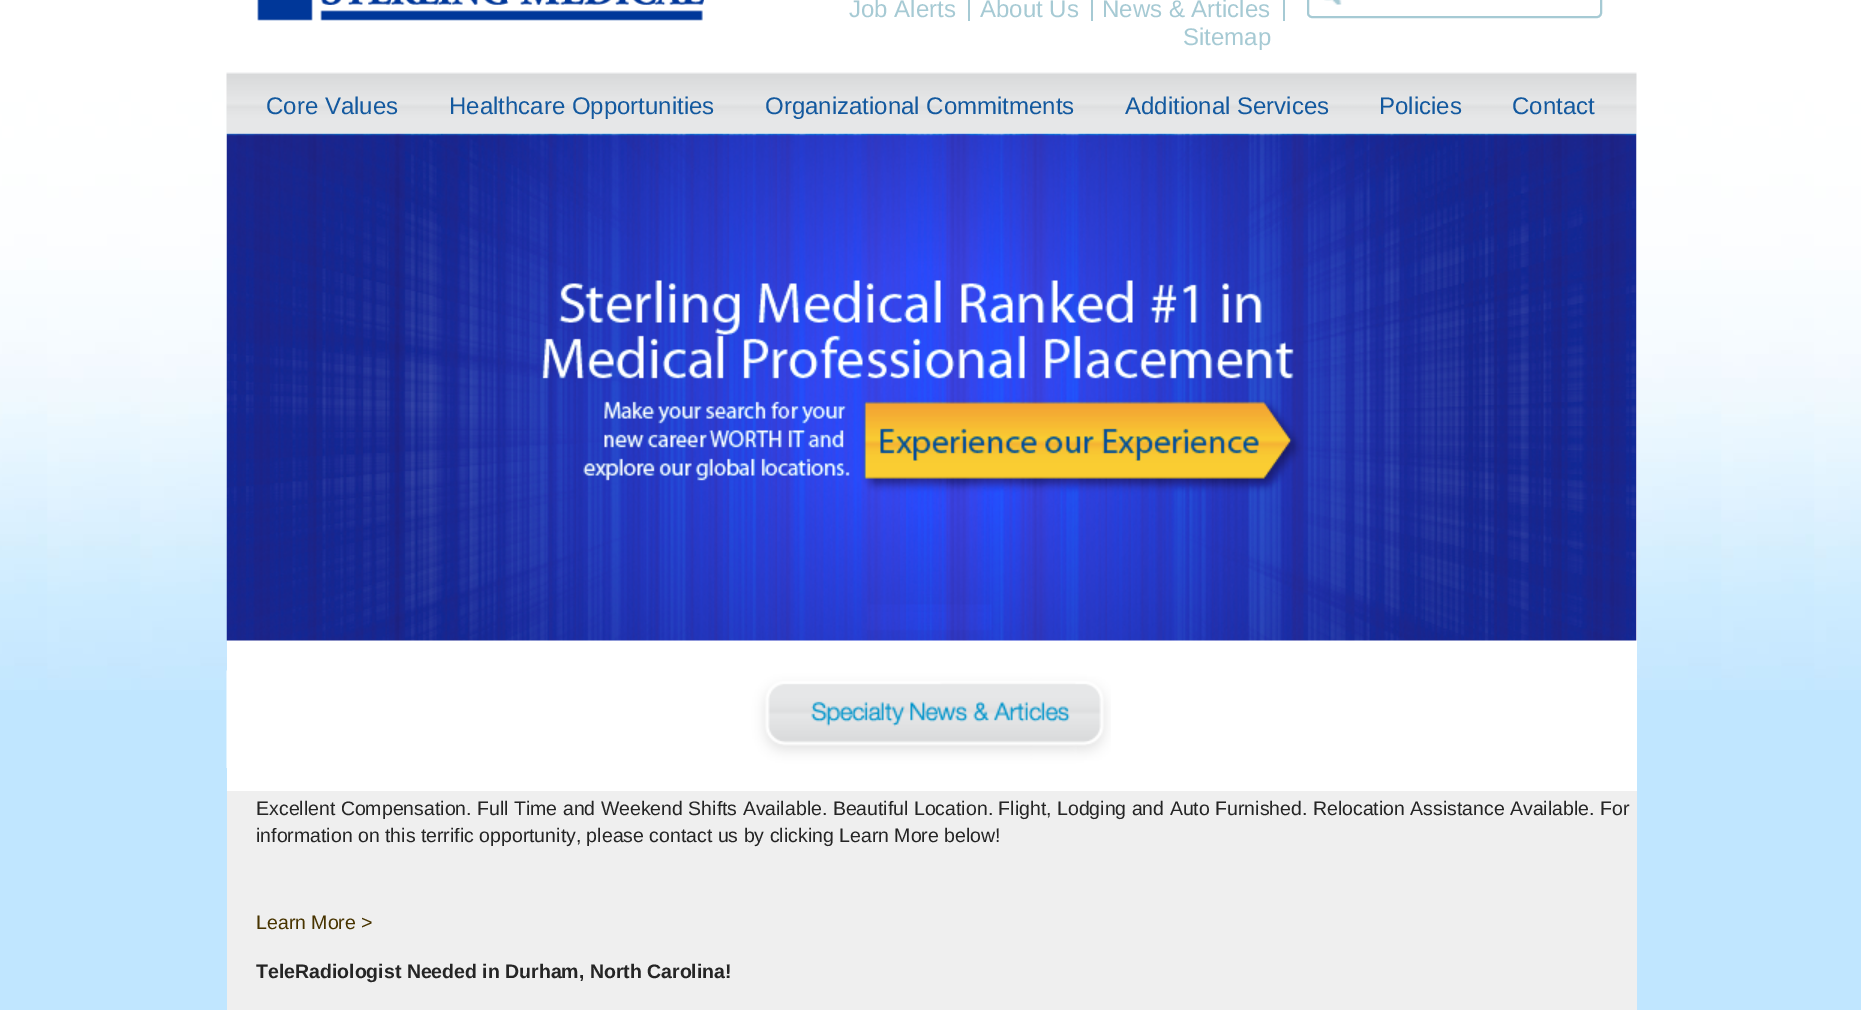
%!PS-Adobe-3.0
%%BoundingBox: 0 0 1861 1010
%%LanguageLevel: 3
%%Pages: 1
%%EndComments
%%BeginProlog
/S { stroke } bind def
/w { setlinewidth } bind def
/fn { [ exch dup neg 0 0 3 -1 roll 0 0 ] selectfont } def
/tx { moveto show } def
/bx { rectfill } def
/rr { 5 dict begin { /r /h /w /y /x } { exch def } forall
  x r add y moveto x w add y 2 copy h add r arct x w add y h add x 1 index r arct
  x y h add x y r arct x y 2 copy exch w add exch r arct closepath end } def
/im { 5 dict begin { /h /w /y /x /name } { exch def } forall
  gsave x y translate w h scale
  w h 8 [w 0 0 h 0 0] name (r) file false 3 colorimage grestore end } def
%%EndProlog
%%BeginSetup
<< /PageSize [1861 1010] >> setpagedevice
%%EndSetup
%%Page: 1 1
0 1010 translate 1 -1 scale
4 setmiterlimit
0.753 0.902 1 setrgbcolor
0 0 1861 1010 bx
(image0.raw) 0 0 1861 690 im
1 setgray
227 234 1410 557 bx
(image1.raw) 257 0 447 21 im
/LiberationSans-Regular 24 fn
0.651 0.792 0.831 setrgbcolor
(Job Alerts) 849 17 tx
968 0 2 21 bx
(About Us) 980 17 tx
1091 0 2 21 bx
(News & Articles) 1102 17 tx
1283 0 2 21 bx
(Sitemap) 1183 45 tx
(image2.raw) 1324 0 18 5 im
2 w
1308 -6 293 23 4 rr S
(image3.raw) 226 72 1411 62 im
0.075 0.349 0.624 setrgbcolor
(Core Values) 266 114 tx
(Healthcare Opportunities) 449 114 tx
(Organizational Commitments) 765 114 tx
(Additional Services) 1125 114 tx
(Policies) 1379 114 tx
(Contact) 1512 114 tx
(image4.raw) 226 133 1411 508 im
(image5.raw) 226 670 885 98 im
0.937 setgray
227 791 1410 219 bx
/LiberationSans-Regular 19.5 fn
0.145 setgray
(Excellent Compensation. Full Time and Weekend Shifts Available. Beautiful Location. Flight, Lodging and Auto Furnished. Relocation Assistance Available. For) 256 815 tx
(information on this terrific opportunity, please contact us by clicking Learn More below!) 256 842 tx
0.282 0.204 0 setrgbcolor
(Learn More >) 256 929 tx
/LiberationSans-Bold 19.5 fn
0.145 setgray
(TeleRadiologist Needed in Durham, North Carolina!) 256 978 tx
showpage
%%EOF
